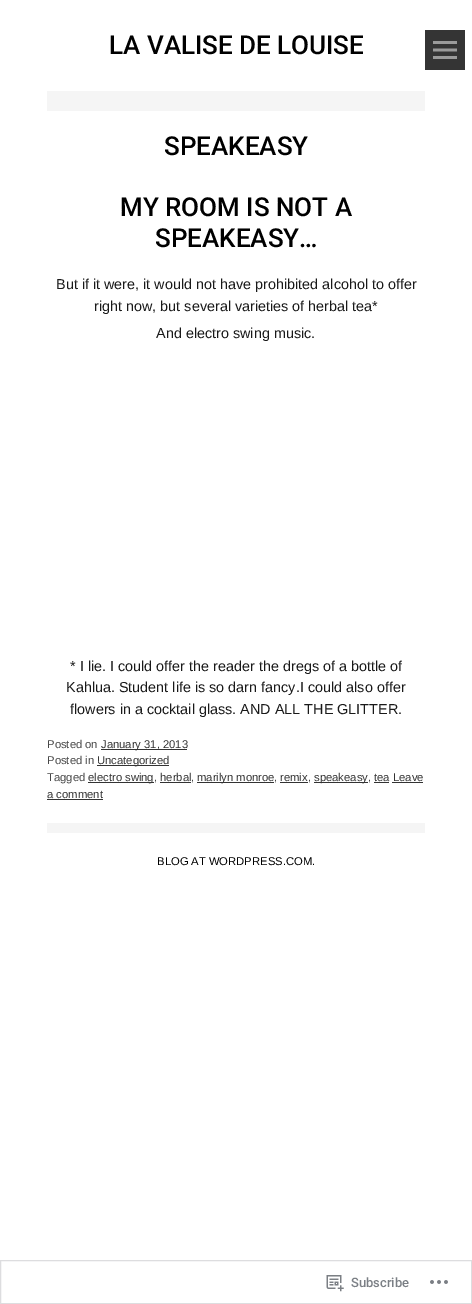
%!PS-Adobe-3.0
%%BoundingBox: 0 0 472 1304
%%LanguageLevel: 3
%%Pages: 1
%%EndComments
%%BeginProlog
/fn { [ exch dup neg 0 0 3 -1 roll 0 0 ] selectfont } def
/tx { moveto show } def
/bx { rectfill } def
/im { 5 dict begin { /h /w /y /x /name } { exch def } forall
  gsave x y translate w h scale
  w h 8 [w 0 0 h 0 0] name (r) file false 3 colorimage grestore end } def
%%EndProlog
%%BeginSetup
<< /PageSize [472 1304] >> setpagedevice
%%EndSetup
%%Page: 1 1
0 1304 translate 1 -1 scale
4 setmiterlimit
1 setgray
0 0 472 1304 bx
0.961 setgray
47 91 378 20 bx
/Roboto-Medium 26 fn
0 setgray
(LA VALISE DE LOUISE) 109 54 tx
0.204 setgray
425 30 40 40 bx
(image0.raw) 433 41 24 18 im
0 setgray
(SPEAKEASY) 164 155 tx
0.961 setgray
47 823 378 10 bx
0 setgray
(MY ROOM IS NOT A) 120 216 tx
(SPEAKEASY…) 155 247 tx
/Arimo-Regular 14.4 fn
0.098 setgray
(But if it were, it would not have prohibited alcohol to offer) 56 289 tx
(right now, but several varieties of herbal tea*) 94 311 tx
(And electro swing music.) 156 338 tx
(* I lie. I could offer the reader the dregs of a bottle of) 70 671 tx
(Kahlua. Student life is so darn fancy.I could also offer) 66 692 tx
(flowers in a cocktail glass. AND ALL THE GLITTER.) 70 714 tx
/Arimo-Regular 11.25 fn
0.278 setgray
(Posted on) 47 748 tx
0.2 setgray
101 749 86 1 bx
(January 31, 2013) 101 748 tx
0.278 setgray
(Posted in) 47 764 tx
0.2 setgray
97 765 72 1 bx
(Uncategorized) 97 764 tx
0.278 setgray
(Tagged) 47 781 tx
0.2 setgray
88 782 66 1 bx
(electro swing) 88 781 tx
0.278 setgray
(,) 154 781 tx
0.2 setgray
(herbal) 160 781 tx
0.278 setgray
(,) 191 781 tx
0.2 setgray
160 782 31 1 bx
197 782 77 1 bx
(marilyn monroe) 197 781 tx
0.278 setgray
(,) 274 781 tx
0.2 setgray
(remix) 280 781 tx
0.278 setgray
(,) 308 781 tx
0.2 setgray
280 782 28 1 bx
314 782 54 1 bx
(speakeasy) 314 781 tx
0.278 setgray
(,) 368 781 tx
0.2 setgray
374 782 15 1 bx
(tea Leave) 374 781 tx
(a comment) 47 798 tx
392 782 31 1 bx
47 799 56 1 bx
0 setgray
(BLOG AT WORDPRESS.COM.) 157 865 tx
0.867 0.867 0.875 setrgbcolor
0.5 1260.5 471 43 rectstroke
(image1.raw) 326 1275 18 17 im
/Roboto-Medium 13 fn
0.482 0.498 0.522 setrgbcolor
(Subscribe) 351 1287 tx
(image2.raw) 430 1280 18 4 im
showpage
%%EOF
